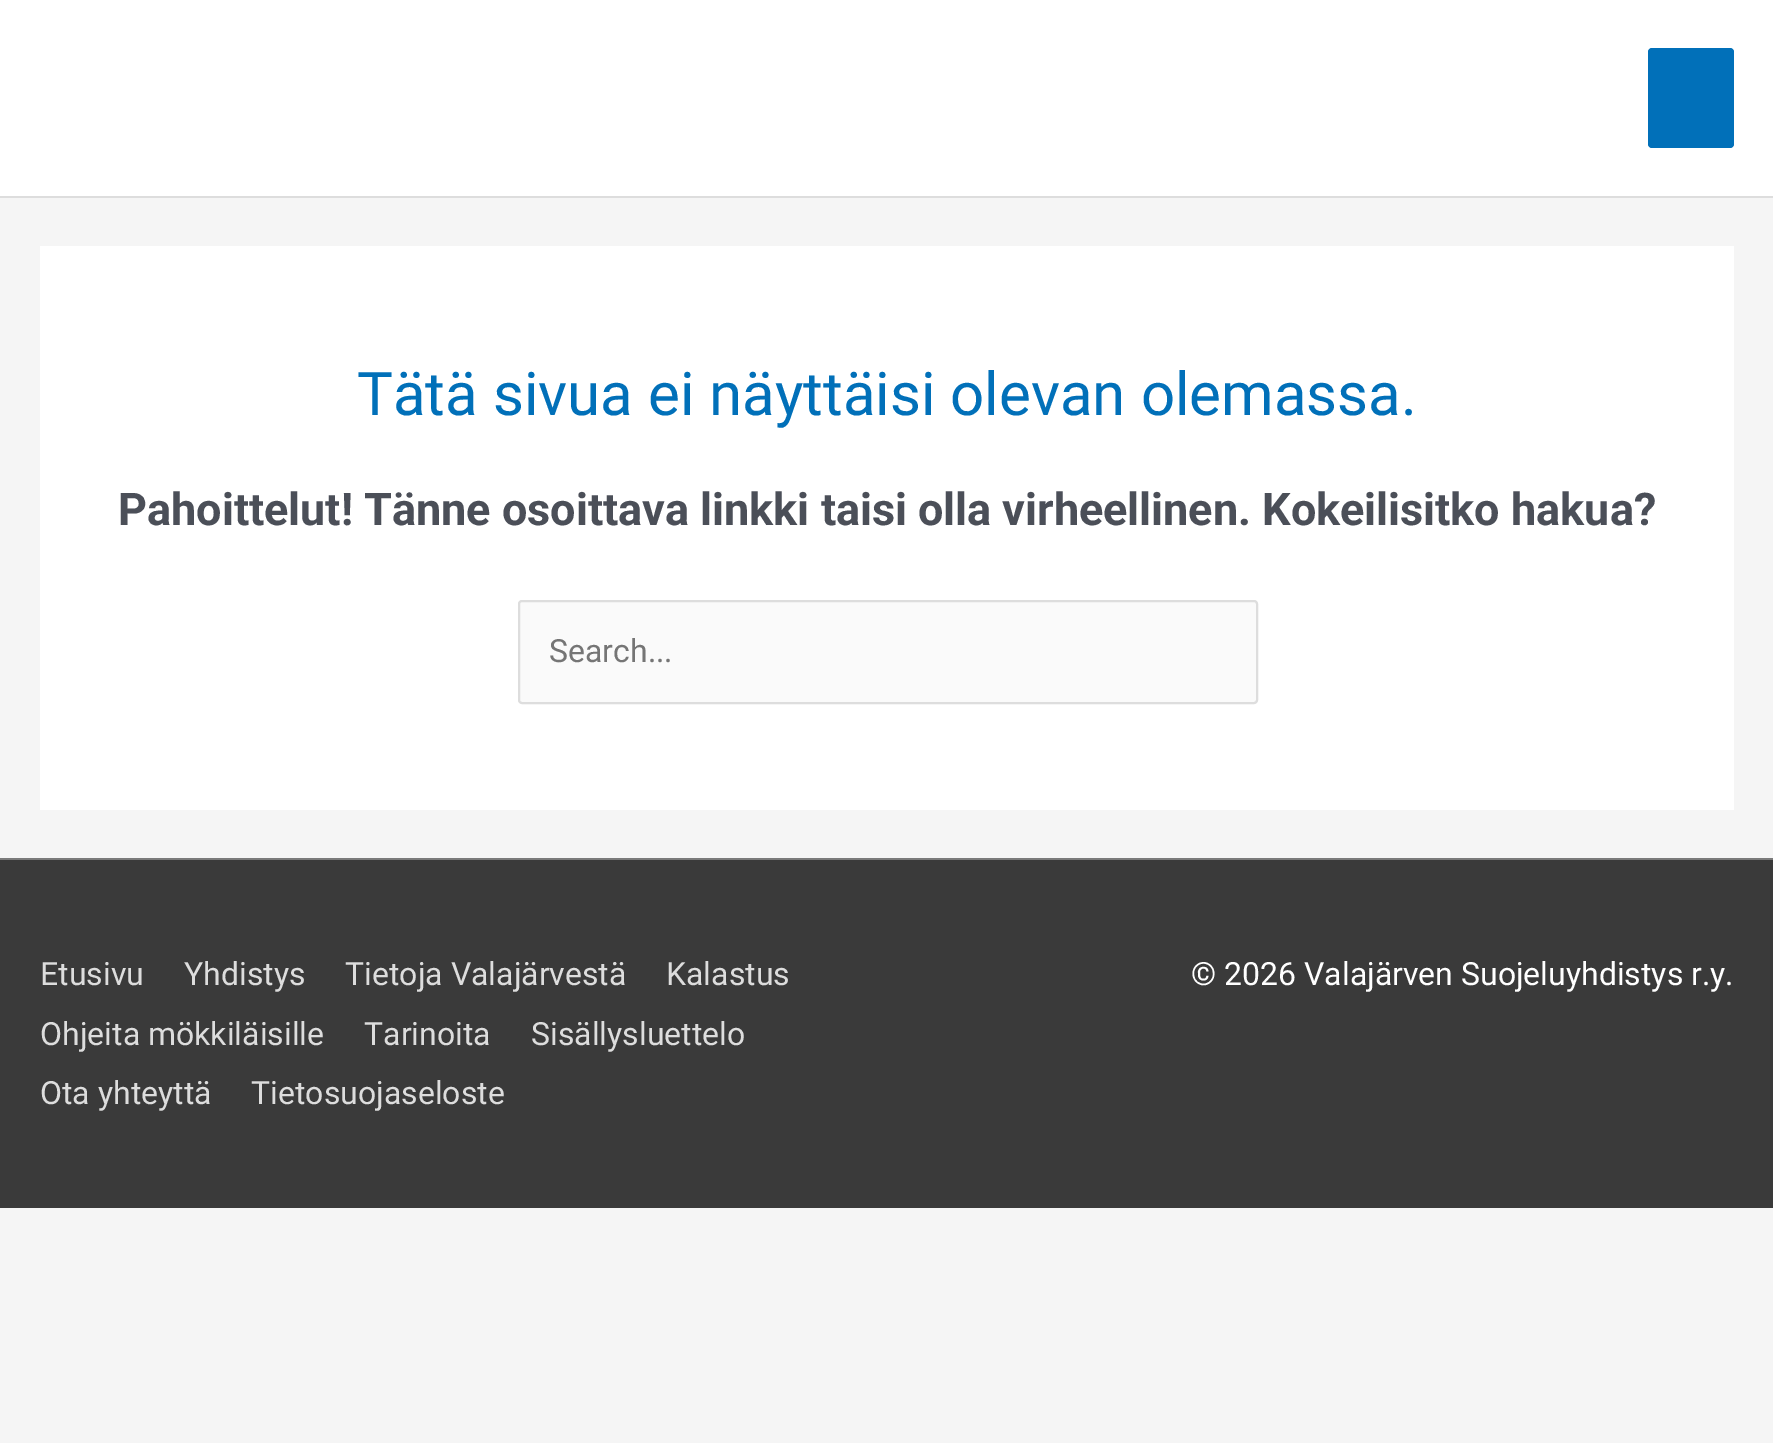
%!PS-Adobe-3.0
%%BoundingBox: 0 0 1773 1443
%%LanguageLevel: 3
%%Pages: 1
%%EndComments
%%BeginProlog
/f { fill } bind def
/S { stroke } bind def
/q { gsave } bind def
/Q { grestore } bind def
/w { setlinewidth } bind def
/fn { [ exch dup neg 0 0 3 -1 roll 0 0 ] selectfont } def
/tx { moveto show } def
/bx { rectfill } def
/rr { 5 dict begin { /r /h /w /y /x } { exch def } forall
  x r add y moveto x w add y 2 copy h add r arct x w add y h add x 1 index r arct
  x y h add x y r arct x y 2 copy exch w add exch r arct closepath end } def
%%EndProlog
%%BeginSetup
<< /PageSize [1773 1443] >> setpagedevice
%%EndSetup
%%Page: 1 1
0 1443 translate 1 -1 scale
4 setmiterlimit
0.961 setgray
0 0 1773 1443 bx
1 setgray
0 0 1773 196 bx
0.867 setgray
0 196 1773 2 bx
0.004 0.439 0.725 setrgbcolor
1648 48 86 100 4 rr f
1 setgray
40 246 1694 564 bx
/Roboto-Regular 60 fn
0.004 0.439 0.725 setrgbcolor
(Tätä sivua ei näyttäisi olevan olemassa.) 357 415 tx
/Roboto-Bold 45 fn
0.294 0.31 0.345 setrgbcolor
(Pahoittelut! Tänne osoittava linkki taisi olla virheellinen. Kokeilisitko hakua?) 118 525 tx
0.98 setgray
519 601 738 102 3 rr q f Q
0.867 setgray
2 w
S
/Roboto-Regular 32 fn
0.459 setgray
(Search...) 549 662 tx
0.478 setgray
0 858 1773 2 bx
0.227 setgray
0 860 1773 348 bx
0.867 setgray
(Etusivu) 40 985 tx
(Yhdistys) 184 985 tx
(Tietoja Valajärvestä) 345 985 tx
(Kalastus) 666 985 tx
(Ohjeita mökkiläisille) 40 1045 tx
(Tarinoita) 364 1045 tx
(Sisällysluettelo) 531 1045 tx
(Ota yhteyttä) 40 1104 tx
(Tietosuojaseloste) 251 1104 tx
1 setgray
(© 2026 Valajärven Suojeluyhdistys r.y.) 1191 985 tx
showpage
%%EOF
